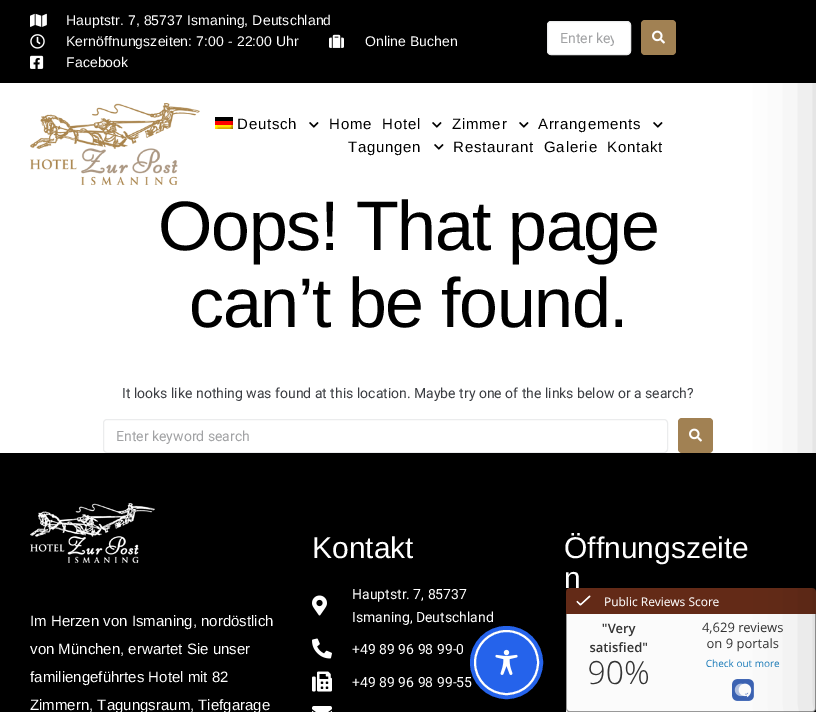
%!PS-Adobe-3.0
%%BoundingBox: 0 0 816 712
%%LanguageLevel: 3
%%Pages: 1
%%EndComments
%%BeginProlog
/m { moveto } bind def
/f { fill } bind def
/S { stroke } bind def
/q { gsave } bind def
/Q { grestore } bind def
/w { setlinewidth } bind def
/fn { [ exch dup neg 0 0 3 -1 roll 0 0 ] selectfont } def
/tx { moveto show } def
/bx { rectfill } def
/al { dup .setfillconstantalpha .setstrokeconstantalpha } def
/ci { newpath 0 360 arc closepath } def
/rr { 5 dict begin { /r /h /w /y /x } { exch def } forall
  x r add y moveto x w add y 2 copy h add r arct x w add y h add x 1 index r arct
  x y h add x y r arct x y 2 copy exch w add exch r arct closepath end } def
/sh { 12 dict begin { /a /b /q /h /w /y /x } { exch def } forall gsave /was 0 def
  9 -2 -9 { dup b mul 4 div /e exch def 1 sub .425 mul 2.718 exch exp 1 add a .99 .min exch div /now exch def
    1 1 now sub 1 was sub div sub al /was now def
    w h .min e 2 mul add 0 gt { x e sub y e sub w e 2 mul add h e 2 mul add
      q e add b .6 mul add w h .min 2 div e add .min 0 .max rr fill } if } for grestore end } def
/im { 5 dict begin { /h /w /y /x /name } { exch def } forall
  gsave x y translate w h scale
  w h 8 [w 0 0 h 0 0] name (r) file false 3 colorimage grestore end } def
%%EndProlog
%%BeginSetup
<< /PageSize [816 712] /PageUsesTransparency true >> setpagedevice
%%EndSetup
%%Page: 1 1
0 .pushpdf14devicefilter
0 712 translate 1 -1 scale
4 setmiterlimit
1 setgray
0 0 816 712 bx
0 setgray
0 0 816 83 bx
(image0.raw) 30 13 17 14 im
/LiberationSans-Regular 14 fn
1 setgray
66 25 m 0.1 0 (Hauptstr. 7, 85737 Ismaning, Deutschland) ashow
(image1.raw) 30 34 15 15 im
66 46 m 0.1 0 (Kernöffnungszeiten: 7:00 - 22:00 Uhr) ashow
(image2.raw) 329 34 15 14 im
365 46 m 0.1 0 (Online Buchen) ashow
(image3.raw) 30 55 14 14 im
66 67 m 0.1 0 (Facebook) ashow
547.5 21.5 83 33 3.5 rr q f Q
0.922 0.925 0.929 setrgbcolor
S
q
560 30 54 16 rectclip
/Roboto-Regular 14 fn
0.631 0.635 0.643 setrgbcolor
(Enter key) 560 43 tx
Q
0.631 0.506 0.325 setrgbcolor
641 20 35 35 4 rr f
(image4.raw) 652 30 13 14 im
(image5.raw) 30 103 170 82 im
(image6.raw) 215 117 18 12 im
/LiberationSans-Regular 15 fn
0 setgray
237 129 m 0.75 0 (Deutsch) ashow
(image7.raw) 309 122 10 6 im
329 129 m 0.75 0 (Home) ashow
382 129 m 0.75 0 (Hotel) ashow
(image7.raw) 432 122 10 6 im
452 129 m 0.75 0 (Zimmer) ashow
(image7.raw) 519 122 10 6 im
538 129 m 0.75 0 (Arrangements) ashow
(image7.raw) 653 122 10 6 im
348 152 m 0.75 0 (Tagungen) ashow
(image7.raw) 434 144 10 6 im
453 152 m 0.75 0 (Restaurant) ashow
544 152 m 0.75 0 (Galerie) ashow
607 152 m 0.75 0 (Kontakt) ashow
/LiberationSans-Regular 70 fn
158 250 m -1.4 0 (Oops! That page) ashow
189 327 m -1.4 0 (can’t be found.) ashow
/Roboto-Regular 14 fn
0.231 0.239 0.259 setrgbcolor
(It looks like nothing was found at this location. Maybe try one of the links below or a search?) 122 398 tx
0.922 0.925 0.929 setrgbcolor
103.5 419.5 564 33 3.5 rr S
0.631 0.635 0.643 setrgbcolor
(Enter keyword search) 116 441 tx
0.631 0.506 0.325 setrgbcolor
678 418 35 35 4 rr f
(image4.raw) 689 428 13 14 im
0 setgray
0 453 816 259 bx
(image8.raw) 30 503 125 60 im
/LiberationSans-Regular 15 fn
1 setgray
(Im Herzen von Ismaning, nordöstlich) 30 626 tx
(von München, erwartet Sie unser) 30 654 tx
(familiengeführtes Hotel mit 82) 30 682 tx
(Zimmern, Tagungsraum, Tiefgarage) 30 710 tx
/LiberationSans-Regular 30 fn
(Kontakt) 312 558 tx
(image9.raw) 312 595 15 21 im
/Roboto-Regular 14 fn
(Hauptstr. 7, 85737) 352 599 tx
(Ismaning, Deutschland) 352 622 tx
(image10.raw) 312 638 20 21 im
(+49 89 96 98 99-0) 352 654 tx
(image11.raw) 312 671 20 21 im
(+49 89 96 98 99-55) 352 687 tx
(image12.raw) 312 706 20 6 im
/LiberationSans-Regular 30 fn
(Öffnungszeite) 564 558 tx
(n) 564 588 tx
(image14.raw) 566 588 250 124 im
0 setgray
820 10 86 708 0 30 0.2 sh
0.145 0.388 0.922 setrgbcolor
4 w
506.5 662.5 34.5 ci S
506.5 662.5 31.5 ci q f Q
1 setgray
2 w
S
(image13.raw) 495 649 23 26 im
.poppdf14devicefilter showpage
%%EOF
